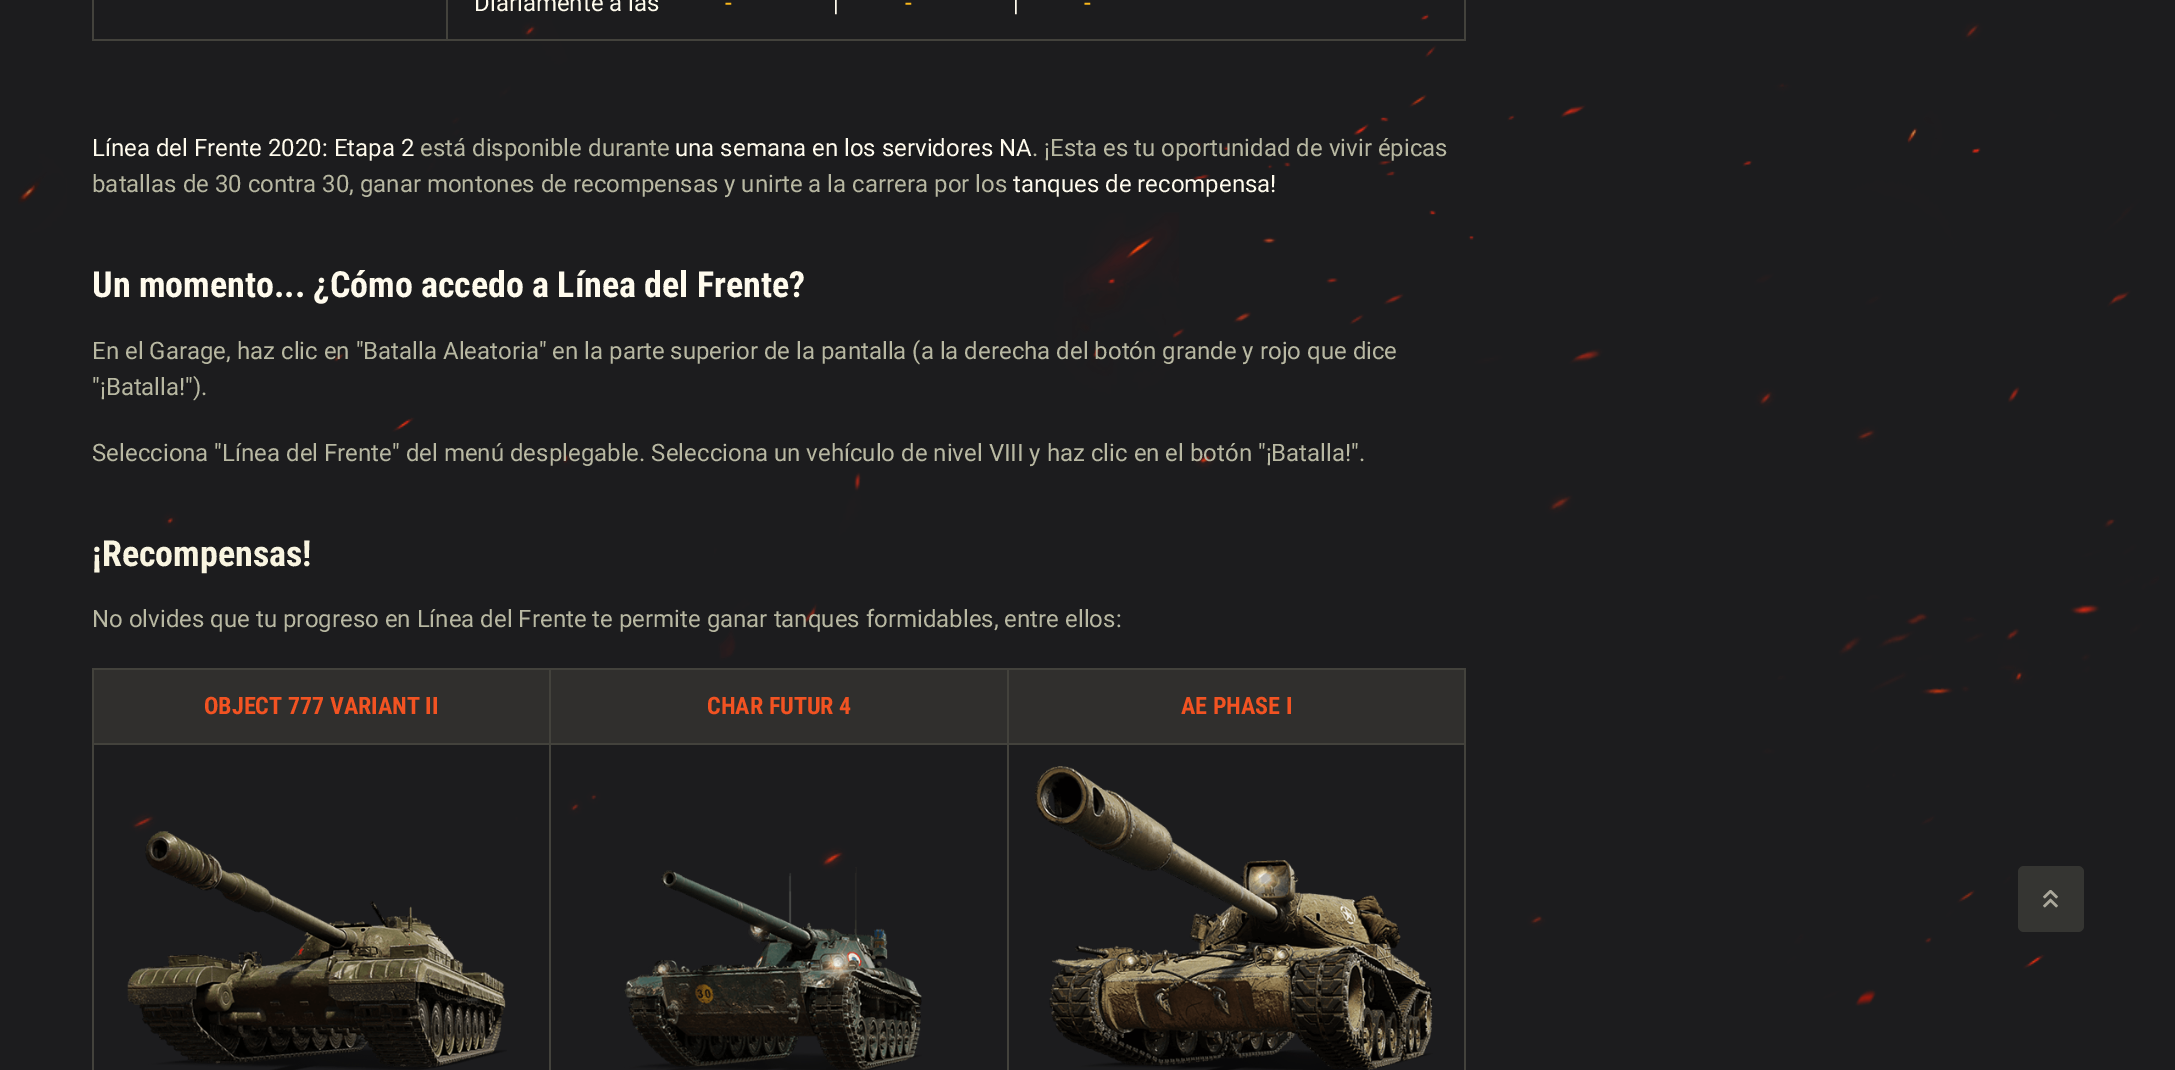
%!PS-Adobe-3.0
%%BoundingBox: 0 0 2175 1070
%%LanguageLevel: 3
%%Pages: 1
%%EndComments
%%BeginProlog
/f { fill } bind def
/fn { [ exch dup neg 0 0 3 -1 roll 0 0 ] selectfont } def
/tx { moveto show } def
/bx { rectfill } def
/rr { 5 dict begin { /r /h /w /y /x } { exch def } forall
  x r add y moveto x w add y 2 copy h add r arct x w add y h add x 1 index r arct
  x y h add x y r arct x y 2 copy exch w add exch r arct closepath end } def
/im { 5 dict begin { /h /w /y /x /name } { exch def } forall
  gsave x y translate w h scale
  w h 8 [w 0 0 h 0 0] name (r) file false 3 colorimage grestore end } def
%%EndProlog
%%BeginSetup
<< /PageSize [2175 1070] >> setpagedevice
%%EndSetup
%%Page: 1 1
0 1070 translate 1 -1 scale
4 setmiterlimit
0.11 0.11 0.118 setrgbcolor
0 0 2175 1070 bx
(image4.raw) 18 14 2141 992 im
0.263 0.259 0.235 setrgbcolor
1464 0 2 41 bx
446 39 1020 2 bx
446 0 2 41 bx
92 39 355 2 bx
92 0 2 41 bx
/Roboto-Regular 24 fn
1 0.984 0.929 setrgbcolor
(Diariamente a las) 474 11 tx
0.98 0.722 0.106 setrgbcolor
(-) 725 11 tx
1 0.984 0.929 setrgbcolor
(|) 833 11 tx
0.98 0.722 0.106 setrgbcolor
(-) 905 11 tx
1 0.984 0.929 setrgbcolor
(|) 1013 11 tx
0.98 0.722 0.106 setrgbcolor
(-) 1084 11 tx
1 0.984 0.929 setrgbcolor
(Línea del Frente 2020: Etapa 2) 92 156 tx
0.722 0.722 0.635 setrgbcolor
(está disponible durante) 420 156 tx
1 0.984 0.929 setrgbcolor
(una semana en los servidores NA) 675 156 tx
0.722 0.722 0.635 setrgbcolor
(. ¡Esta es tu oportunidad de vivir épicas) 1032 156 tx
(batallas de 30 contra 30, ganar montones de recompensas y unirte a la carrera por los) 92 192 tx
1 0.984 0.929 setrgbcolor
(tanques de recompensa!) 1013 192 tx
/RobotoCondensed-Bold 36 fn
(Un momento... ¿Cómo accedo a Línea del Frente?) 92 297 tx
/Roboto-Regular 24 fn
0.722 0.722 0.635 setrgbcolor
(En el Garage, haz clic en "Batalla Aleatoria" en la parte superior de la pantalla \(a la derecha del botón grande y rojo que dice) 92 359 tx
("¡Batalla!"\).) 92 395 tx
(Selecciona "Línea del Frente" del menú desplegable. Selecciona un vehículo de nivel VIII y haz clic en el botón "¡Batalla!".) 92 461 tx
/RobotoCondensed-Bold 36 fn
0.976 0.961 0.882 setrgbcolor
(¡Recompensas!) 92 566 tx
/Roboto-Regular 24 fn
0.722 0.722 0.635 setrgbcolor
(No olvides que tu progreso en Línea del Frente te permite ganar tanques formidables, entre ellos:) 92 627 tx
0.188 0.184 0.176 setrgbcolor
94 670 455 73 bx
0.263 0.259 0.235 setrgbcolor
1007 668 459 2 bx
1007 743 459 2 bx
1007 743 2 327 bx
549 743 459 2 bx
1007 668 2 76 bx
549 668 459 2 bx
549 743 2 327 bx
92 743 459 2 bx
549 668 2 76 bx
92 668 459 2 bx
92 743 2 327 bx
92 668 2 76 bx
/RobotoCondensed-Bold 24 fn
0.949 0.325 0.133 setrgbcolor
(OBJECT 777 VARIANT II) 204 714 tx
0.188 0.184 0.176 setrgbcolor
551 670 456 73 bx
0.949 0.325 0.133 setrgbcolor
(CHAR FUTUR 4) 707 714 tx
0.188 0.184 0.176 setrgbcolor
1009 670 455 73 bx
0.263 0.259 0.235 setrgbcolor
1464 743 2 327 bx
1464 668 2 76 bx
0.949 0.325 0.133 setrgbcolor
(AE PHASE I) 1181 714 tx
(image0.raw) 127 831 380 239 im
(image1.raw) 624 867 298 203 im
(image2.raw) 1035 766 398 304 im
0.208 0.208 0.196 setrgbcolor
2018 866 66 66 6 rr f
(image3.raw) 2043 890 15 18 im
showpage
%%EOF
